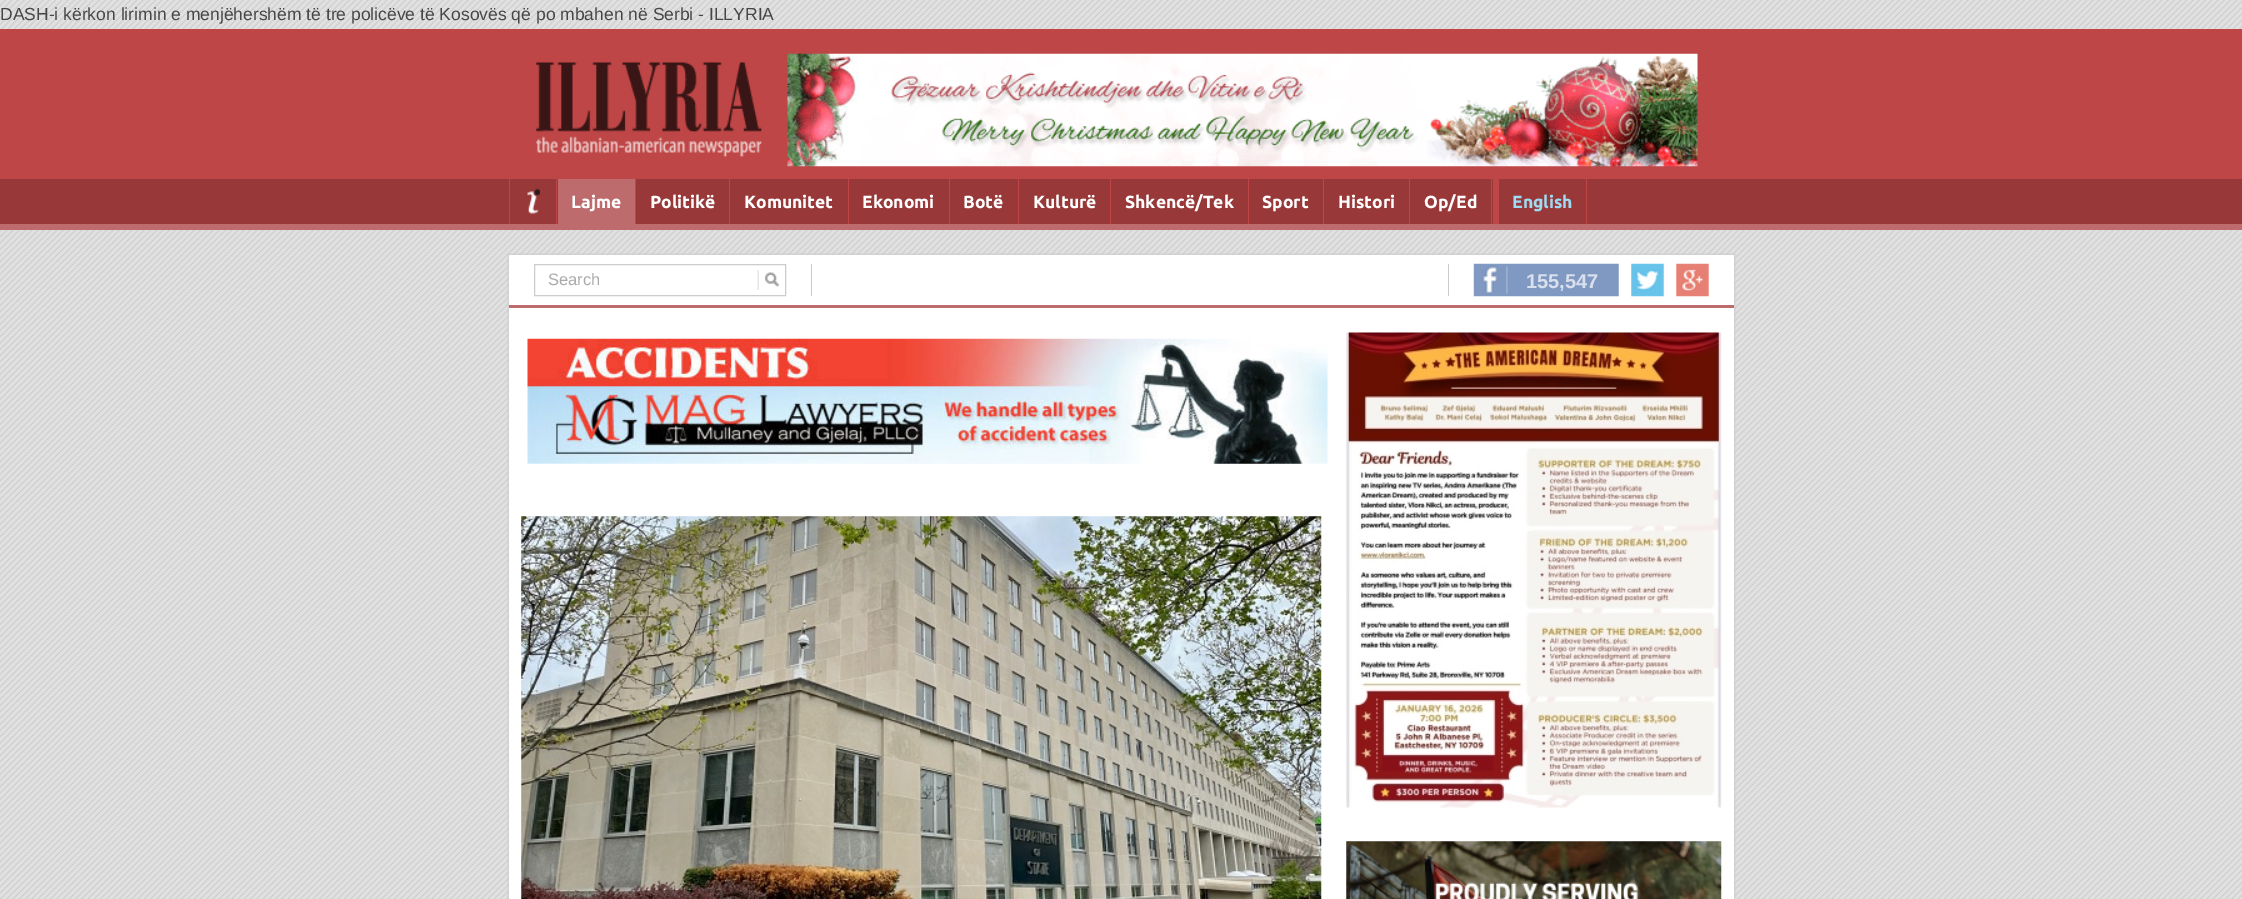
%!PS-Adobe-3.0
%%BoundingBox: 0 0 2242 899
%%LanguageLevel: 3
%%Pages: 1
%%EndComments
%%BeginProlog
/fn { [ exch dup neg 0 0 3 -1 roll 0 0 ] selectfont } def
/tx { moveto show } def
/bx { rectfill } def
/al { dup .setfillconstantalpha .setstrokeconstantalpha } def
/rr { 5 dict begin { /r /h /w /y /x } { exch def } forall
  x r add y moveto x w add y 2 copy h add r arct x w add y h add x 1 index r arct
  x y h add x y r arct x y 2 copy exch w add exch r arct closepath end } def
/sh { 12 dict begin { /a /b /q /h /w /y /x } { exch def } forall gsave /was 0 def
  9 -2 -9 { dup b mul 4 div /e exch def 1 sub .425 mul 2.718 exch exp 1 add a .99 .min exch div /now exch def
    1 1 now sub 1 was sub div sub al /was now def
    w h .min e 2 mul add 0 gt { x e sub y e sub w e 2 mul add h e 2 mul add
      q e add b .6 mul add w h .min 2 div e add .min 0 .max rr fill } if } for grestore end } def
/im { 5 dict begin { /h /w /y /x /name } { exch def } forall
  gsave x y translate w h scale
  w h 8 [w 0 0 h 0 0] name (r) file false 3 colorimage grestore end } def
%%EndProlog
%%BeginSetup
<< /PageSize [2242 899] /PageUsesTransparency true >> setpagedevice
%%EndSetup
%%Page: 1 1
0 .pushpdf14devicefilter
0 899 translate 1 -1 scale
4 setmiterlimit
1 setgray
0 0 2242 899 bx
(image0.raw) 0 0 2242 899 im
/LiberationSans-Regular 17.5 fn
0.275 0.275 0.278 setrgbcolor
(DASH-i kërkon lirimin e menjëhershëm të tre policëve të Kosovës që po mbahen në Serbi - ILLYRIA) 0 20 tx
0.749 0.275 0.275 setrgbcolor
0 29 2242 150 bx
(image1.raw) 536 62 226 95 im
(image2.raw) 787 53 911 114 im
0.596 0.22 0.22 setrgbcolor
0 179 2242 45 bx
0.741 0.42 0.424 setrgbcolor
0 224 2242 6 bx
(image3.raw) 527 188 13 26 im
0.749 0.275 0.275 setrgbcolor
556 179 1 45 bx
509 179 1 45 bx
0.741 0.42 0.424 setrgbcolor
558 179 77 45 bx
0.749 0.275 0.275 setrgbcolor
635 179 1 45 bx
/Ubuntu-Bold 17.5 fn
1 setgray
(Lajme) 571 208 tx
0.749 0.275 0.275 setrgbcolor
729 179 1 45 bx
1 setgray
(Politikë) 650 208 tx
0.749 0.275 0.275 setrgbcolor
848 179 1 45 bx
1 setgray
(Komunitet) 744 208 tx
0.749 0.275 0.275 setrgbcolor
949 179 1 45 bx
1 setgray
(Ekonomi) 862 208 tx
0.749 0.275 0.275 setrgbcolor
1018 179 1 45 bx
1 setgray
(Botë) 963 208 tx
0.749 0.275 0.275 setrgbcolor
1110 179 1 45 bx
1 setgray
(Kulturë) 1033 208 tx
0.749 0.275 0.275 setrgbcolor
1248 179 1 45 bx
1 setgray
(Shkencë/Tek) 1125 208 tx
0.749 0.275 0.275 setrgbcolor
1323 179 1 45 bx
1 setgray
(Sport) 1262 208 tx
0.749 0.275 0.275 setrgbcolor
1409 179 1 45 bx
1 setgray
(Histori) 1338 208 tx
0.749 0.275 0.275 setrgbcolor
1491 179 1 45 bx
1 setgray
(Op/Ed) 1424 208 tx
0.749 0.275 0.275 setrgbcolor
1586 179 1 45 bx
1493 179 6 45 bx
0.616 0.863 0.957 setrgbcolor
(English) 1512 208 tx
0.8 setgray
508 254 1227 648 0 1 1 sh
1 setgray
509 255 1225 644 bx
0.741 0.42 0.424 setrgbcolor
509 305 1225 3 bx
0.8 setgray
534.5 264.5 251 31 rectstroke
/LiberationSans-Regular 16.5 fn
0.667 setgray
(Search) 548 285 tx
(image4.raw) 757 270 22 20 im
0.8 setgray
1448 264 1 32 bx
811 264 1 32 bx
(image5.raw) 1473 263 146 34 im
/LiberationSans-Bold 20 fn
0.851 0.878 0.929 setrgbcolor
(155,547) 1526 288 tx
(image6.raw) 1631 263 33 34 im
(image7.raw) 1676 263 33 34 im
(image8.raw) 527 338 801 126 im
0.98 setgray
521 516 800 383 bx
(image9.raw) 521 516 801 383 im
(image10.raw) 1346 332 376 476 im
(image11.raw) 1346 841 376 58 im
.poppdf14devicefilter showpage
%%EOF
